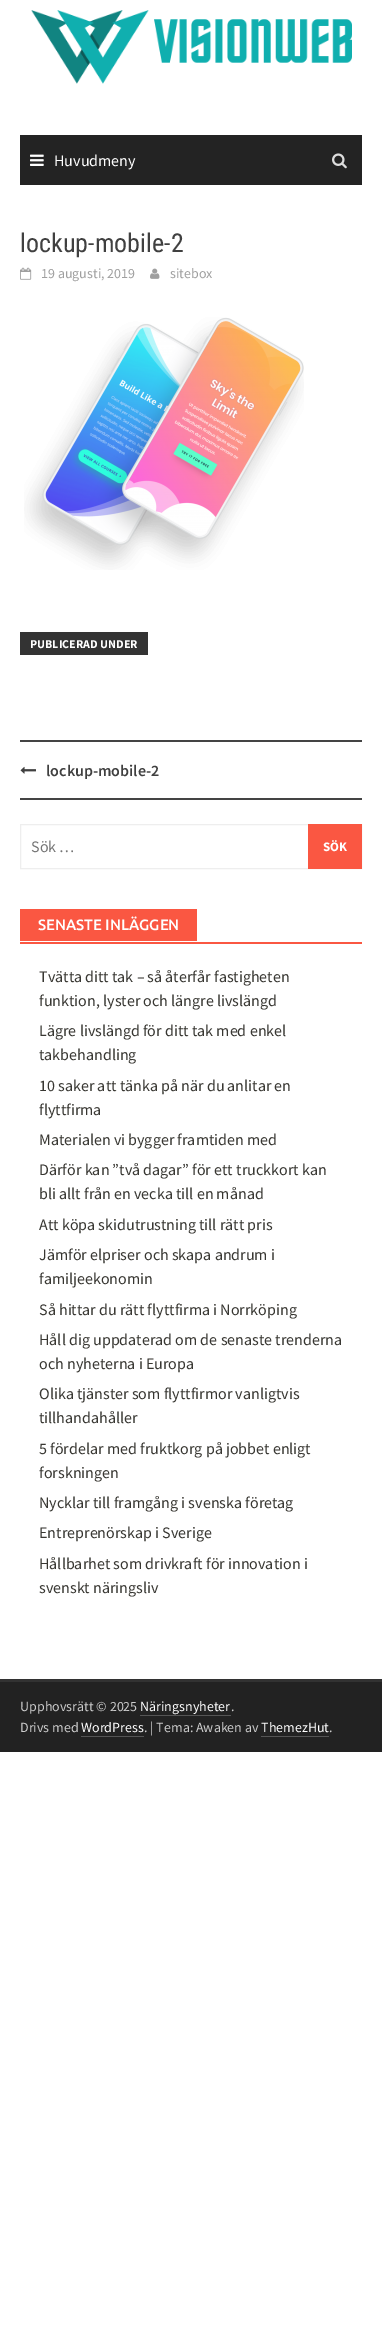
%!PS-Adobe-3.0
%%BoundingBox: 0 0 382 2333
%%LanguageLevel: 3
%%Pages: 1
%%EndComments
%%BeginProlog
/fn { [ exch dup neg 0 0 3 -1 roll 0 0 ] selectfont } def
/tx { moveto show } def
/bx { rectfill } def
/im { 5 dict begin { /h /w /y /x /name } { exch def } forall
  gsave x y translate w h scale
  w h 8 [w 0 0 h 0 0] name (r) file false 3 colorimage grestore end } def
%%EndProlog
%%BeginSetup
<< /PageSize [382 2333] >> setpagedevice
%%EndSetup
%%Page: 1 1
0 2333 translate 1 -1 scale
4 setmiterlimit
1 setgray
0 0 382 2333 bx
(image0.raw) 31 10 321 74 im
0.137 setgray
20 135 342 50 bx
(image1.raw) 30 154 14 12 im
/SourceSansPro-Regular 16 fn
1 setgray
(Huvudmeny) 54 166 tx
(image2.raw) 332 153 15 16 im
/RobotoCondensed-Regular 26 fn
0.251 setgray
(lockup-mobile-2) 20 252 tx
(image3.raw) 20 267 12 13 im
/SourceSansPro-Regular 14 fn
0.624 setgray
(19 augusti, 2019) 41 278 tx
(image4.raw) 150 268 10 11 im
(sitebox) 170 278 tx
(image5.raw) 24 317 280 253 im
0.2 setgray
20 632 128 23 bx
/SourceSansPro-Bold 12 fn
1 setgray
(PUBLICERAD UNDER) 30 648 tx
0.267 setgray
20 740 342 2 bx
20 798 342 2 bx
(image6.raw) 20 766 16 8 im
/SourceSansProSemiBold-SemiBold 16 fn
0.251 setgray
(lockup-mobile-2) 46 776 tx
0.933 setgray
20.5 824.5 341 44 rectstroke
/SourceSansPro-Regular 16 fn
0.459 setgray
(Sök …) 31 852 tx
0.98 0.341 0.259 setrgbcolor
308 824 54 45 bx
/SourceSansPro-Bold 13 fn
1 setgray
(SÖK) 323 851 tx
0.98 0.341 0.259 setrgbcolor
20 942 342 2 bx
20 909 177 32 bx
/Ubuntu-Medium 15 fn
1 setgray
(SENASTE INLÄGGEN) 38 930 tx
/SourceSansPro-Regular 16 fn
0.22 0.216 0.196 setrgbcolor
(Tvätta ditt tak – så återfår fastigheten) 39 982 tx
(funktion, lyster och längre livslängd) 39 1006 tx
(Lägre livslängd för ditt tak med enkel) 39 1036 tx
(takbehandling) 39 1060 tx
(10 saker att tänka på när du anlitar en) 39 1091 tx
(flyttfirma) 39 1115 tx
(Materialen vi bygger framtiden med) 39 1145 tx
(Därför kan ”två dagar” för ett truckkort kan) 39 1175 tx
(bli allt från en vecka till en månad) 39 1199 tx
(Att köpa skidutrustning till rätt pris) 39 1230 tx
(Jämför elpriser och skapa andrum i) 39 1260 tx
(familjeekonomin) 39 1284 tx
(Så hittar du rätt flyttfirma i Norrköping) 39 1315 tx
(Håll dig uppdaterad om de senaste trenderna) 39 1345 tx
(och nyheterna i Europa) 39 1369 tx
(Olika tjänster som flyttfirmor vanligtvis) 39 1399 tx
(tillhandahåller) 39 1423 tx
(5 fördelar med fruktkorg på jobbet enligt) 39 1454 tx
(forskningen) 39 1478 tx
(Nycklar till framgång i svenska företag) 39 1508 tx
(Entreprenörskap i Sverige) 39 1538 tx
(Hållbarhet som drivkraft för innovation i) 39 1569 tx
(svenskt näringsliv) 39 1593 tx
0.196 setgray
0 1679 382 3 bx
0.133 setgray
0 1682 382 70 bx
/SourceSansPro-Regular 14 fn
0.8 setgray
(Upphovsrätt © 2025) 20 1711 tx
1 setgray
(Näringsnyheter) 140 1711 tx
0.333 setgray
140 1715 91 1 bx
0.8 setgray
(.) 231 1711 tx
(Drivs med) 20 1732 tx
1 setgray
(WordPress) 81 1732 tx
0.333 setgray
81 1736 63 1 bx
0.8 setgray
(. | Tema: Awaken av) 144 1732 tx
1 setgray
(ThemezHut) 261 1732 tx
0.333 setgray
261 1736 68 1 bx
0.8 setgray
(.) 329 1732 tx
showpage
%%EOF
